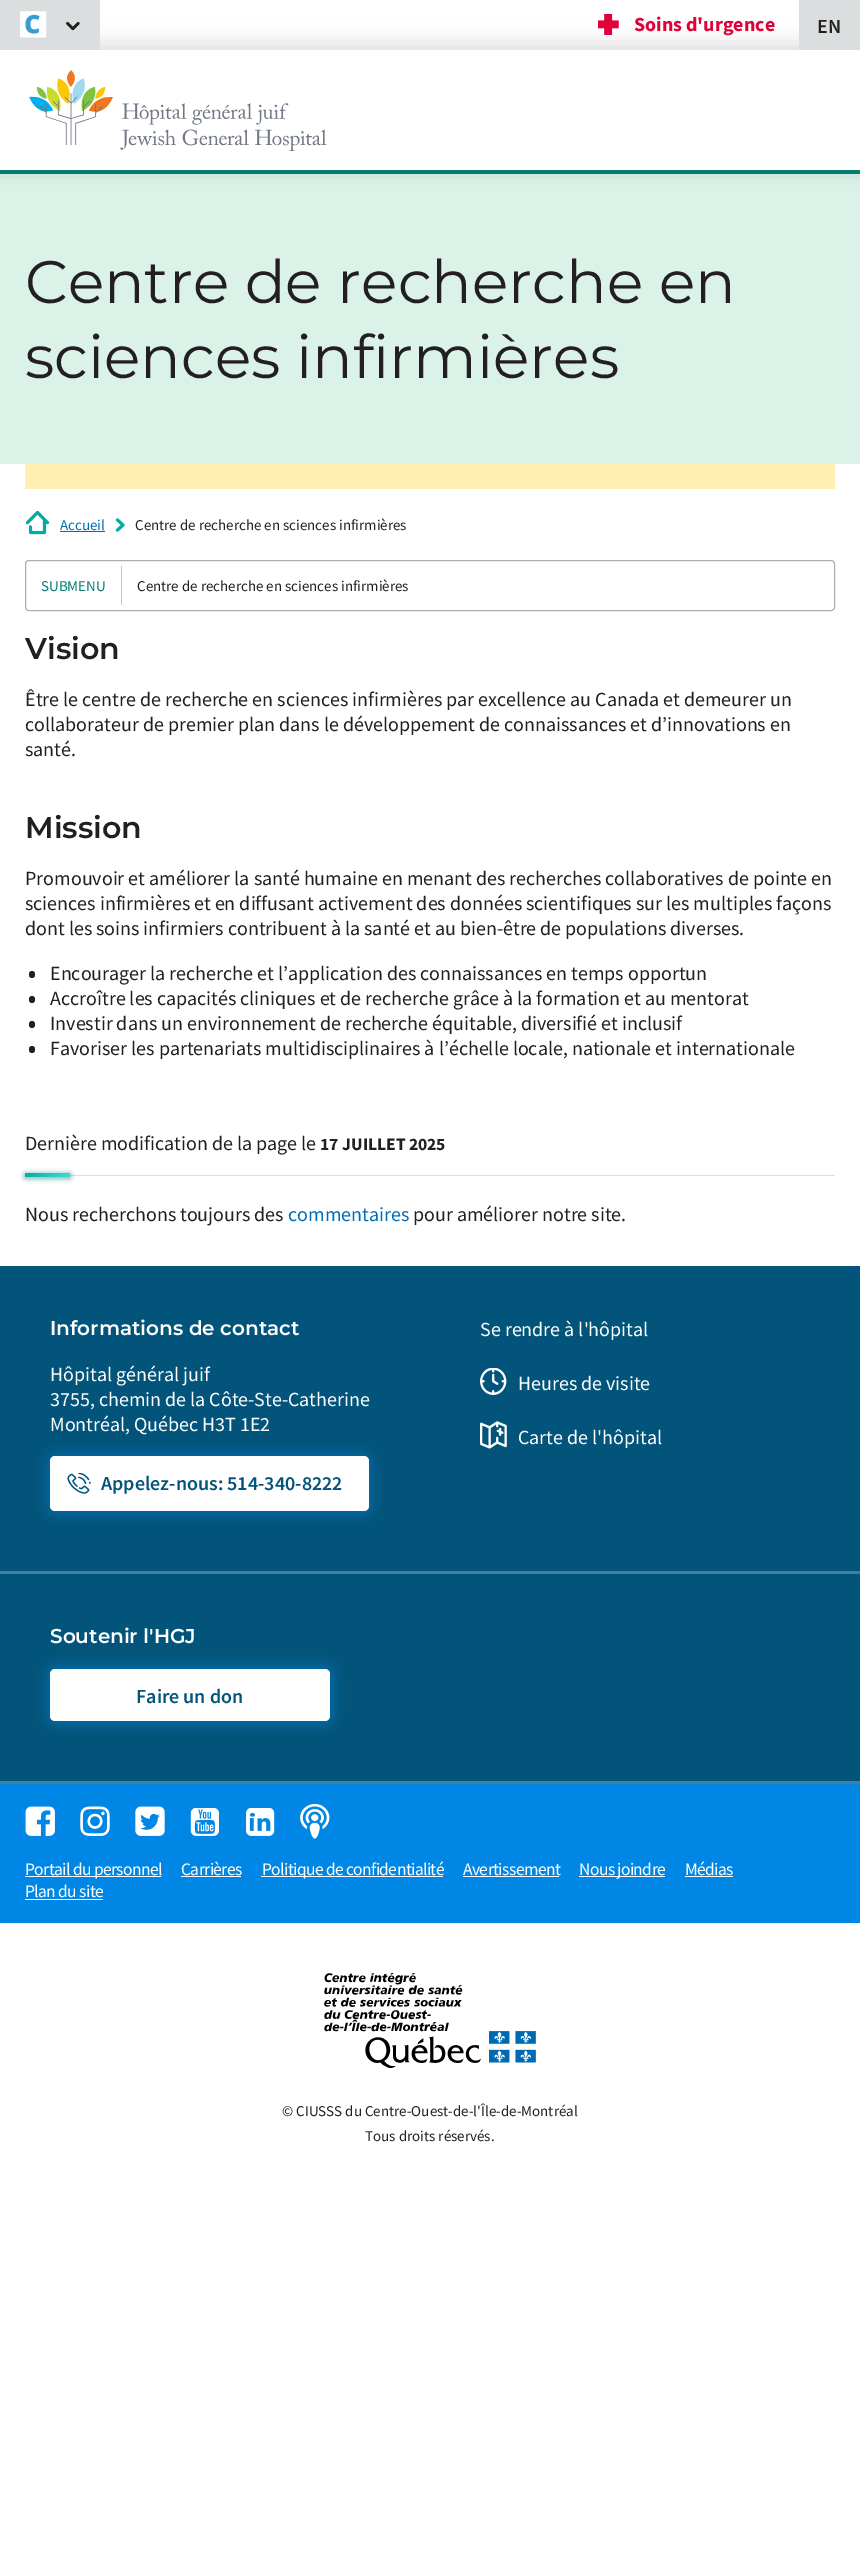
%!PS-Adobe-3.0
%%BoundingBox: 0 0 860 2569
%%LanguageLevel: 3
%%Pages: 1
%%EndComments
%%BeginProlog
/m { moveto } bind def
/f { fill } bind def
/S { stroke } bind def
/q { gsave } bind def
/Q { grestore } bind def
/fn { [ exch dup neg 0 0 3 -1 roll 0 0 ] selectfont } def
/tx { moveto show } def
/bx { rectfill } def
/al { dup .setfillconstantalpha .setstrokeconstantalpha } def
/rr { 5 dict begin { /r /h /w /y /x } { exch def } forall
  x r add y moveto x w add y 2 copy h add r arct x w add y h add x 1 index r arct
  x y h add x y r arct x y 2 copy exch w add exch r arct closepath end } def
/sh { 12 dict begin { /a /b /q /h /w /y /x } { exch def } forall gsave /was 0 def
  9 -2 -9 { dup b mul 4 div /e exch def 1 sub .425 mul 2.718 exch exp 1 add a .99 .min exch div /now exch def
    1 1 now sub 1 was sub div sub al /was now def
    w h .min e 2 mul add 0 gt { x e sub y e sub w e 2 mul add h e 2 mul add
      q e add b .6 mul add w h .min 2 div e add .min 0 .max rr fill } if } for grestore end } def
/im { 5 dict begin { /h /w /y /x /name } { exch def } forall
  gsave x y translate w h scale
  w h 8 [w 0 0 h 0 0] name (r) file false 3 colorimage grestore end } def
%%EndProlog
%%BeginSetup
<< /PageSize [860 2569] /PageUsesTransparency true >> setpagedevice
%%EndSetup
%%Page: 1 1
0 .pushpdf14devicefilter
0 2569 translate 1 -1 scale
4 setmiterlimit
1 setgray
0 0 860 2569 bx
0.855 0.949 0.906 setrgbcolor
0 174 860 290 bx
0 setgray
-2 43 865 128 0 10 0.12 sh
1 setgray
0 50 860 120 bx
0.008 0.49 0.447 setrgbcolor
0 170 860 4 bx
0.859 0.871 0.875 setrgbcolor
0 0 100 50 bx
(image0.raw) 20 11 27 27 im
(image1.raw) 66 21 14 10 im
(image2.raw) 598 14 21 21 im
/SourceSansPro-Bold 20 fn
0.875 0.004 0.227 setrgbcolor
(Soins d'urgence) 634 31 tx
0.859 0.871 0.875 setrgbcolor
799 0 61 50 bx
/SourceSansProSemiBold-SemiBold 20 fn
0.137 0.122 0.125 setrgbcolor
(EN) 817 33 tx
(image3.raw) 29 70 298 81 im
/Montserrat-Regular 60 fn
(Centre de recherche en) 25 303 tx
(sciences infirmières) 25 378 tx
1 0.937 0.698 setrgbcolor
25 464 810 25 bx
(image4.raw) 25 510 25 25 im
/SourceSansPro-Regular 15 fn
0 0.42 0.714 setrgbcolor
(Accueil) 60 530 tx
60 531 45 1 bx
(image5.raw) 115 518 10 14 im
0.137 0.122 0.125 setrgbcolor
(Centre de recherche en sciences infirmières) 135 530 tx
0.671 0.686 0.714 setrgbcolor
25.5 560.5 809 50 3.5 rr S
0.008 0.49 0.447 setrgbcolor
(SUBMENU) 41 591 tx
0.784 0.78 0.78 setrgbcolor
121 566 1 39 bx
0.137 0.122 0.125 setrgbcolor
(Centre de recherche en sciences infirmières) 137 591 tx
/Montserrat-SemiBold 30 fn
(Vision) 25 659 tx
/SourceSansPro-Regular 20 fn
(Être le centre de recherche en sciences infirmières par excellence au Canada et demeurer un) 25 706 tx
(collaborateur de premier plan dans le développement de connaissances et d’innovations en) 25 731 tx
(santé.) 25 756 tx
/Montserrat-SemiBold 30 fn
(Mission) 25 838 tx
/SourceSansPro-Regular 20 fn
(Promouvoir et améliorer la santé humaine en menant des recherches collaboratives de pointe en) 25 885 tx
(sciences infirmières et en diffusant activement des données scientifiques sur les multiples façons) 25 910 tx
(dont les soins infirmiers contribuent à la santé et au bien-être de populations diverses.) 25 935 tx
29 971 6 7 3 rr f
(Encourager la recherche et l’application des connaissances en temps opportun) 50 980 tx
29 996 6 7 3 rr f
(Accroître les capacités cliniques et de recherche grâce à la formation et au mentorat) 50 1005 tx
29 1021 6 7 3 rr f
(Investir dans un environnement de recherche équitable, diversifié et inclusif) 50 1030 tx
29 1046 6 7 3 rr f
(Favoriser les partenariats multidisciplinaires à l’échelle locale, nationale et internationale) 50 1055 tx
(Dernière modification de la page le) 25 1150 tx
/SourceSansPro-Bold 17.5 fn
(17 JUILLET 2025) 320 1150 tx
0.859 0.871 0.875 setrgbcolor
25 1175 810 1 bx
0.008 0.49 0.447 setrgbcolor
24 1173 47 6 3 2.5 0.5 sh
q 25 1173 45 4 2 rr clip newpath
<< /ShadingType 2 /ColorSpace /DeviceRGB /Coords [70 1174 25 1174] /Extend [true true] /Function << /FunctionType 2 /Domain [0 1] /C0 [0.243 0.863 0.808] /C1 [0.024 0.686 0.631] /N 1 >> >> shfill Q
/SourceSansPro-Regular 20 fn
0.137 0.122 0.125 setrgbcolor
(Nous recherchons toujours des) 25 1221 tx
0 0.42 0.714 setrgbcolor
(commentaires) 288 1221 tx
0.137 0.122 0.125 setrgbcolor
(pour améliorer notre site.) 413 1221 tx
0.012 0.329 0.482 setrgbcolor
0 1266 860 515 bx
/Montserrat-SemiBold 20 fn
1 setgray
(Informations de contact) 50 1335 tx
/SourceSansPro-Regular 20 fn
(Hôpital général juif) 50 1381 tx
(3755, chemin de la Côte-Ste-Catherine) 50 1406 tx
(Montréal, Québec H3T 1E2) 50 1431 tx
0 0.529 0.898 setrgbcolor
53 1459 313 50 2.5 7.5 1 sh
1 setgray
50 1456 319 55 5 rr f
(image6.raw) 67 1473 24 21 im
/SourceSansProSemiBold-SemiBold 20 fn
0.012 0.329 0.482 setrgbcolor
(Appelez-nous: 514-340-8222) 101 1490 tx
/SourceSansPro-Regular 20 fn
1 setgray
(Se rendre à l'hôpital) 480 1336 tx
(image7.raw) 480 1368 27 27 im
(Heures de visite) 518 1390 tx
(image8.raw) 480 1421 27 28 im
(Carte de l'hôpital) 518 1444 tx
0.259 0.498 0.612 setrgbcolor
0 1571 860 3 bx
0 1781 860 3 bx
/Montserrat-SemiBold 20 fn
1 setgray
(Soutenir l'HGJ) 50 1643 tx
0 0.529 0.898 setrgbcolor
53 1671 275 48 2.5 7.5 1 sh
1 setgray
50 1669 280 52 5 rr f
/SourceSansProSemiBold-SemiBold 20 fn
0.012 0.329 0.482 setrgbcolor
(Faire un don) 136 1703 tx
0 0.529 0.898 setrgbcolor
0 1784 860 139 bx
(image9.raw) 25 1806 30 30 im
(image10.raw) 80 1806 30 30 im
(image11.raw) 135 1806 30 30 im
(image12.raw) 190 1808 29 28 im
(image13.raw) 246 1808 29 28 im
(image14.raw) 300 1804 30 35 im
1 setgray
25 1876 136 1 bx
/SourceSansPro-Regular 17.5 fn
25 1875 m -0.6 0 (Portail du personnel) ashow
181 1875 m -0.6 0 (Carrières) ashow
181 1876 60 1 bx
261 1876 182 1 bx
262 1875 m -0.6 0 (Politique de confidentialité) ashow
463 1875 m -0.6 0 (Avertissement) ashow
463 1876 96 1 bx
579 1876 86 1 bx
579 1875 m -0.6 0 (Nous joindre) ashow
685 1875 m -0.6 0 (Médias) ashow
685 1876 48 1 bx
25 1897 m -0.6 0 (Plan du site) ashow
25 1899 78 1 bx
(image15.raw) 324 1973 212 95 im
/SourceSansPro-Regular 15 fn
0.137 0.122 0.125 setrgbcolor
(© CIUSSS du Centre-Ouest-de-l'Île-de-Montréal) 282 2116 tx
(Tous droits réservés.) 365 2141 tx
.poppdf14devicefilter showpage
%%EOF
